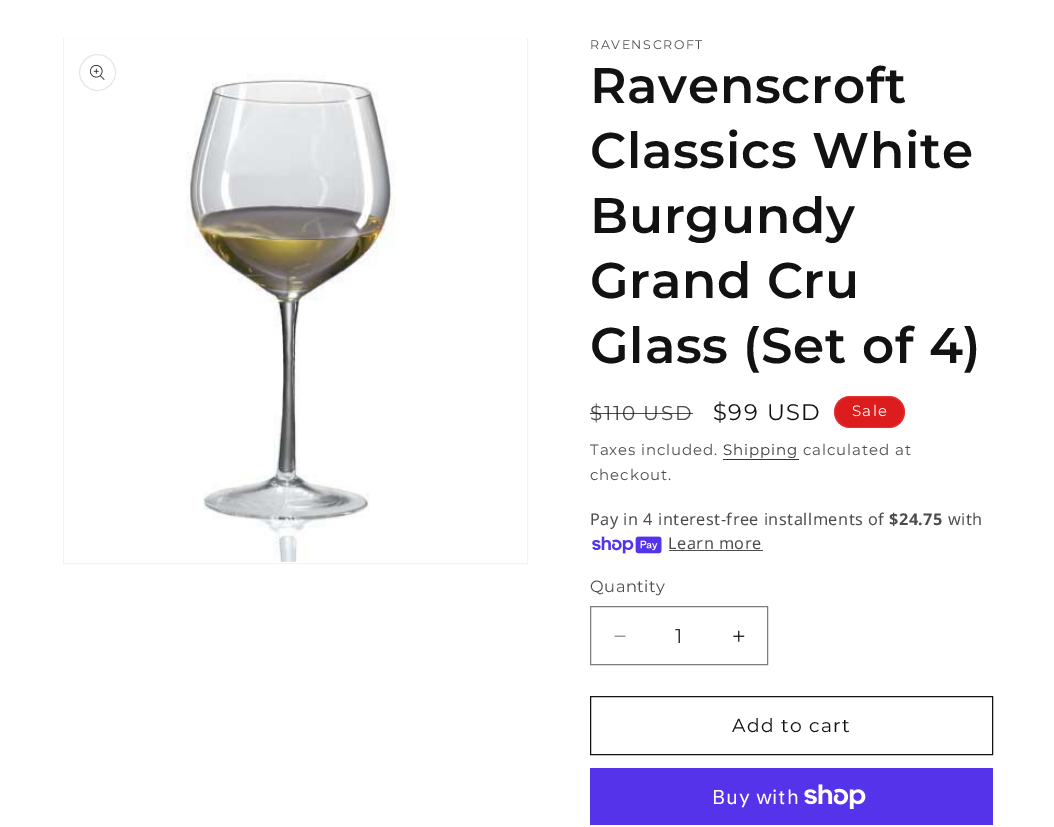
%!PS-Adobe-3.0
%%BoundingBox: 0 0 1054 827
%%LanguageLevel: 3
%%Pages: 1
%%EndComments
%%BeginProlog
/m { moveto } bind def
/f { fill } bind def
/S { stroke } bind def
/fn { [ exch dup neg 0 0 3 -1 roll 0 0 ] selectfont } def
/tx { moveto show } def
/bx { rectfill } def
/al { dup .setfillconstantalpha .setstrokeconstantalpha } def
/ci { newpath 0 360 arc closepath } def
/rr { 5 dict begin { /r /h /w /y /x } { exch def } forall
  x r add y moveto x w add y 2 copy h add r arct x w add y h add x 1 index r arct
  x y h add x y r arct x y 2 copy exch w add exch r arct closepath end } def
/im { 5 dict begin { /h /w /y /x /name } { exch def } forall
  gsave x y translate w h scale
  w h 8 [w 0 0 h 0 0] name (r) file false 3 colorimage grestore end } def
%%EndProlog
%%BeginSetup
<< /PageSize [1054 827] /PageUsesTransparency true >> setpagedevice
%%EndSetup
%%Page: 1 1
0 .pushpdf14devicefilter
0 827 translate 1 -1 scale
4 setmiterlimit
1 setgray
0 0 1054 827 bx
0.953 setgray
63.5 38.5 464 525 rectstroke
(image0.raw) 64 38 462 524 im
0.906 setgray
97.5 72.5 18 ci S
(image1.raw) 90 65 15 15 im
/Montserrat-Regular 12.5 fn
0.302 setgray
590 49 m 1.6 0 (RAVENSCROFT) ashow
/Montserrat-SemiBold 50 fn
0.071 setgray
590 103 m 0.75 0 (Ravenscroft) ashow
590 168 m 0.75 0 (Classics White) ashow
590 233 m 0.75 0 (Burgundy) ashow
590 298 m 0.75 0 (Grand Cru) ashow
590 363 m 0.75 0 (Glass \(Set of 4\)) ashow
/Montserrat-Regular 20 fn
0.302 setgray
590 420 m 1.6 0 ($110 USD) ashow
0.75 al
0.071 setgray
590 413 103 1 bx
/Montserrat-Regular 22.5 fn
1 al
713 420 m 1.6 0 ($99 USD) ashow
0.867 0.114 0.114 setrgbcolor
834 396 71 32 16 rr f
0.1 al
1 setgray
834.5 396.5 70 31 15.5 rr S
/Montserrat-Regular 15 fn
1 al
852 416 m 1.25 0 (Sale) ashow
0.302 setgray
590 455 m 0.9 0 (Taxes included.) ashow
0.212 setgray
723 455 m 0.9 0 (Shipping) ashow
723 459 76 1 bx
0.302 setgray
803 455 m 0.9 0 (calculated at) ashow
590 480 m 0.9 0 (checkout.) ashow
/NotoSans-Regular 16.25 fn
590 525 m 0.5 0 (Pay in 4 interest-free installments of) ashow
/NotoSans-Bold 16.25 fn
889 525 m 0.5 0 ($24.75) ashow
/NotoSans-Regular 16.25 fn
948 525 m 0.5 0 (with) ashow
(image2.raw) 592 536 70 18 im
668 549 m 0.5 0 (Learn more) ashow
669 550 94 1 bx
/Montserrat-Regular 16.25 fn
590 592 m 0.5 0 (Quantity) ashow
(image3.raw) 614 635 12 2 im
(image4.raw) 733 630 12 12 im
0.49 setgray
590.5 606.5 177 58 rectstroke
/Montserrat-Regular 20 fn
0.212 setgray
(1) 675 643 tx
0.071 setgray
590.5 696.5 402 58 rectstroke
/Montserrat-Regular 18.75 fn
732 732 m 1.25 0 (Add to cart) ashow
0.329 0.2 0.922 setrgbcolor
590 768 403 57 bx
/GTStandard-Regular 20 fn
1 setgray
712 804 m 0.75 0 (Buy with) ashow
(image5.raw) 804 784 62 25 im
.poppdf14devicefilter showpage
%%EOF
